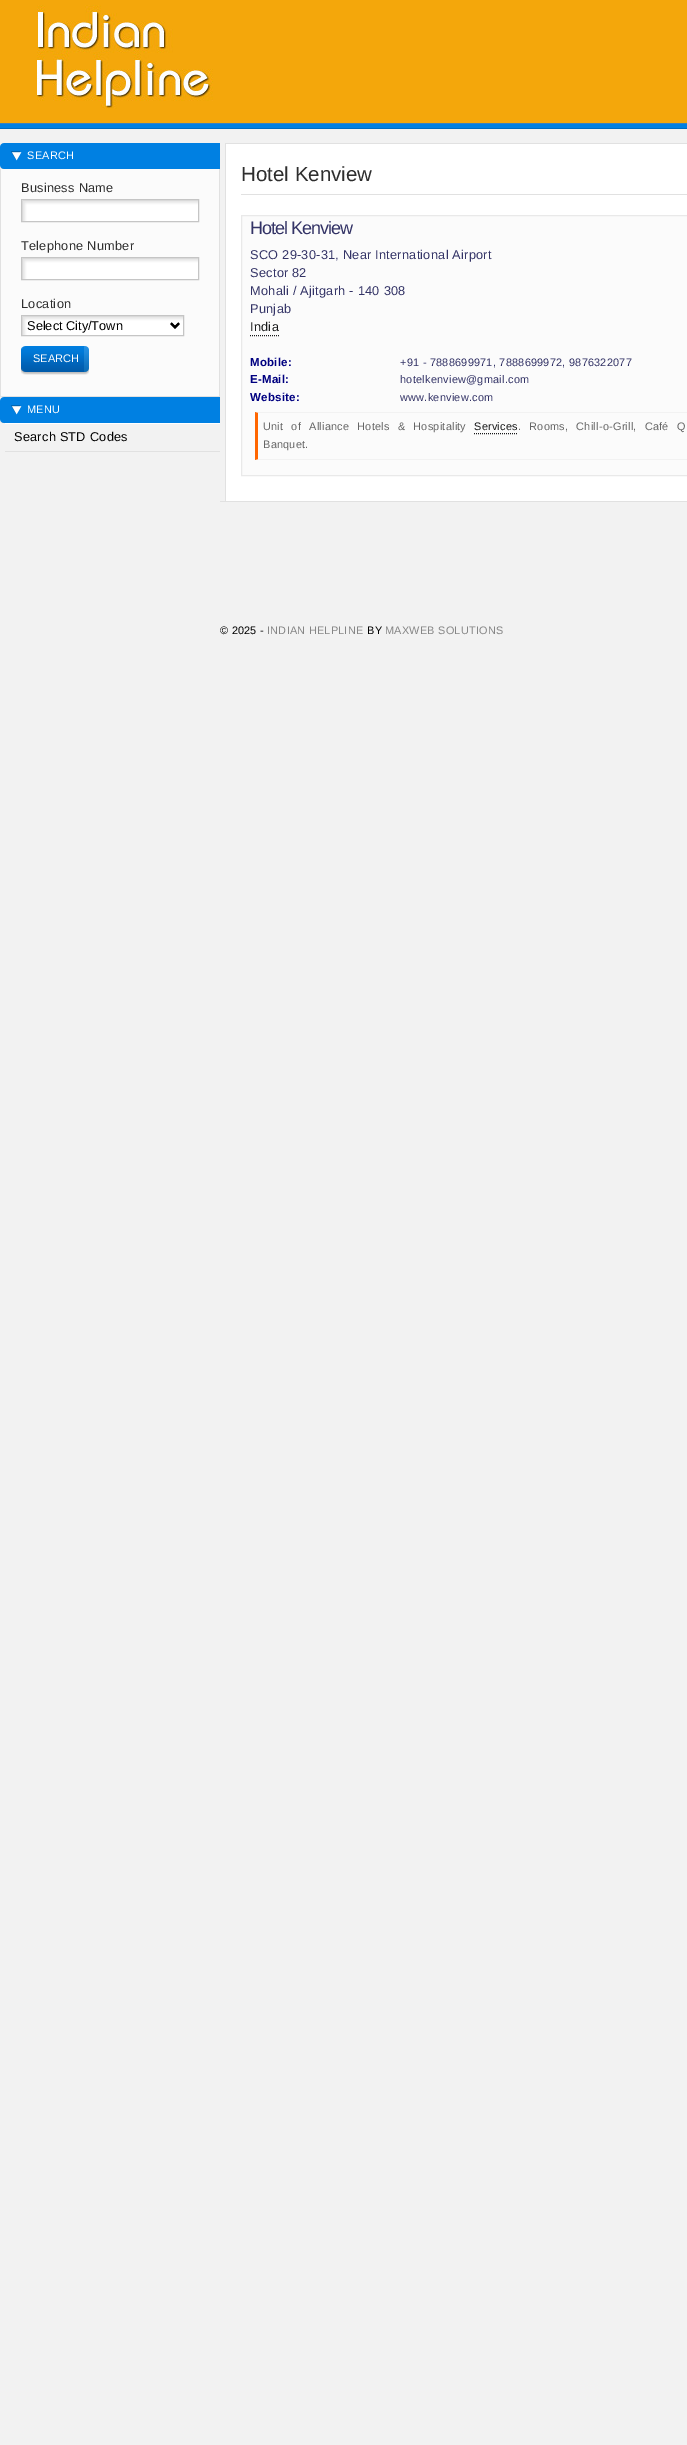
%!PS-Adobe-3.0
%%BoundingBox: 0 0 687 2445
%%LanguageLevel: 3
%%Pages: 1
%%EndComments
%%BeginProlog
/m { moveto } bind def
/l { lineto } bind def
/h { closepath } bind def
/f { fill } bind def
/S { stroke } bind def
/q { gsave } bind def
/Q { grestore } bind def
/w { setlinewidth } bind def
/fn { [ exch dup neg 0 0 3 -1 roll 0 0 ] selectfont } def
/tx { moveto show } def
/bx { rectfill } def
/im { 5 dict begin { /h /w /y /x /name } { exch def } forall
  gsave x y translate w h scale
  w h 8 [w 0 0 h 0 0] name (r) file false 3 colorimage grestore end } def
%%EndProlog
%%BeginSetup
<< /PageSize [687 2445] >> setpagedevice
%%EndSetup
%%Page: 1 1
0 2445 translate 1 -1 scale
4 setmiterlimit
0.949 setgray
0 0 687 2445 bx
(image0.raw) 0 0 687 129 im
(image1.raw) 37 5 176 104 im
1 setgray
226 144 461 357 bx
(image2.raw) 0 143 220 26 im
/LiberationSans-Regular 10.9 fn
27 159 m 0.25 0 (SEARCH) ashow
0.984 setgray
1 169 218 227 bx
0.882 setgray
219 169 1 228 bx
0 396 220 1 bx
0 169 1 228 bx
/LiberationSans-Regular 12.75 fn
0.18 setgray
21 192 m 0.25 0 (Business Name) ashow
(image3.raw) 22 200 176 21 im
0.773 setgray
21.5 199.5 177 22 rectstroke
0.18 setgray
21 250 m 0.25 0 (Telephone Number) ashow
(image3.raw) 22 258 176 21 im
0.773 setgray
21.5 257.5 177 22 rectstroke
0.18 setgray
21 308 m 0.25 0 (Location) ashow
(image4.raw) 22 316 161 19 im
0.773 setgray
21.5 315.5 162 20 rectstroke
0 setgray
2 w
171 323.5 m 175 327.5 l 179 323.5 l S
(Select City/Town) 27 330 tx
(image5.raw) 84 346 5 29 im
(image6.raw) 21 346 63 29 im
/LiberationSans-Regular 11 fn
1 setgray
(SEARCH) 33 362 tx
(image2.raw) 0 397 220 26 im
/LiberationSans-Regular 10.9 fn
27 413 m 0.25 0 (MENU) ashow
5 423 215 1 bx
0.882 setgray
5 451 215 1 bx
/LiberationSans-Regular 12.75 fn
0 setgray
14 441 m 0.25 0 (Search STD Codes) ashow
0.882 setgray
225 143 462 1 bx
225 143 1 358 bx
241 194 446 1 bx
/LiberationSans-Regular 20.5 fn
0.18 setgray
(Hotel Kenview) 241 181 tx
0.984 setgray
241.5 215.5 m 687.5 215.5 l 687.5 475.5 l 241.5 475.5 l h q f Q
0.914 setgray
1 w
S
/LiberationSans-Regular 18 fn
0.2 0.2 0.4 setrgbcolor
250 234 m -1 0 (Hotel Kenview) ashow
/LiberationSans-Regular 12.75 fn
250 259 m 0.25 0 (SCO 29-30-31, Near International Airport) ashow
250 277 m 0.25 0 (Sector 82) ashow
250 295 m 0.25 0 (Mohali / Ajitgarh - 140 308) ashow
250 313 m 0.25 0 (Punjab) ashow
0.094 0.098 0.102 setrgbcolor
250 331 m 0.25 0 (India) ashow
[1 1] 0 setdash
250 335.5 m 279 335.5 l S
/LiberationSans-Bold 11.5 fn
0 0 0.502 setrgbcolor
250 366 m 0.25 0 (Mobile:) ashow
/LiberationSans-Regular 10.9 fn
0.2 0.2 0.4 setrgbcolor
400 366 m 0.25 0 (+91 - 7888699971, 7888699972, 9876322077) ashow
/LiberationSans-Bold 11.5 fn
0 0 0.502 setrgbcolor
250 383 m 0.25 0 (E-Mail:) ashow
/LiberationSans-Regular 10.9 fn
0.2 0.2 0.4 setrgbcolor
400 383 m 0.25 0 (hotelkenview@gmail.com) ashow
/LiberationSans-Bold 11.5 fn
0 0 0.502 setrgbcolor
250 401 m 0.25 0 (Website:) ashow
/LiberationSans-Regular 10.9 fn
0.2 0.2 0.4 setrgbcolor
400 401 m 0.25 0 (www.kenview.com) ashow
0.949 setgray
255 412 m 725 412 l 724 413 l 258 413 l h f
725 460 m 255 460 l 258 459 l 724 459 l h f
1 0.4 0 setrgbcolor
255 460 m 255 412 l 258 413 l 258 459 l h f
0.4 setgray
263 430 m 4.75 0 32 0.25 0 (Unit of Alliance Hotels & Hospitality) awidthshow
0.094 0.098 0.102 setrgbcolor
474 430 m 0.25 0 (Services) ashow
474 433.5 m 518 433.5 l S
0.4 setgray
518 430 m 4.75 0 32 0.25 0 (. Rooms, Chill-o-Grill, Café Q) awidthshow
263 448 m 0.25 0 (Banquet.) ashow
0.882 setgray
220 501 467 1 bx
0 setgray
220 634 m 0.25 0 (© 2025 -) ashow
0.525 setgray
267 634 m 0.25 0 (INDIAN HELPLINE) ashow
0 setgray
367 634 m 0.25 0 (BY) ashow
0.525 setgray
385 634 m 0.25 0 (MAXWEB SOLUTIONS) ashow
showpage
%%EOF
